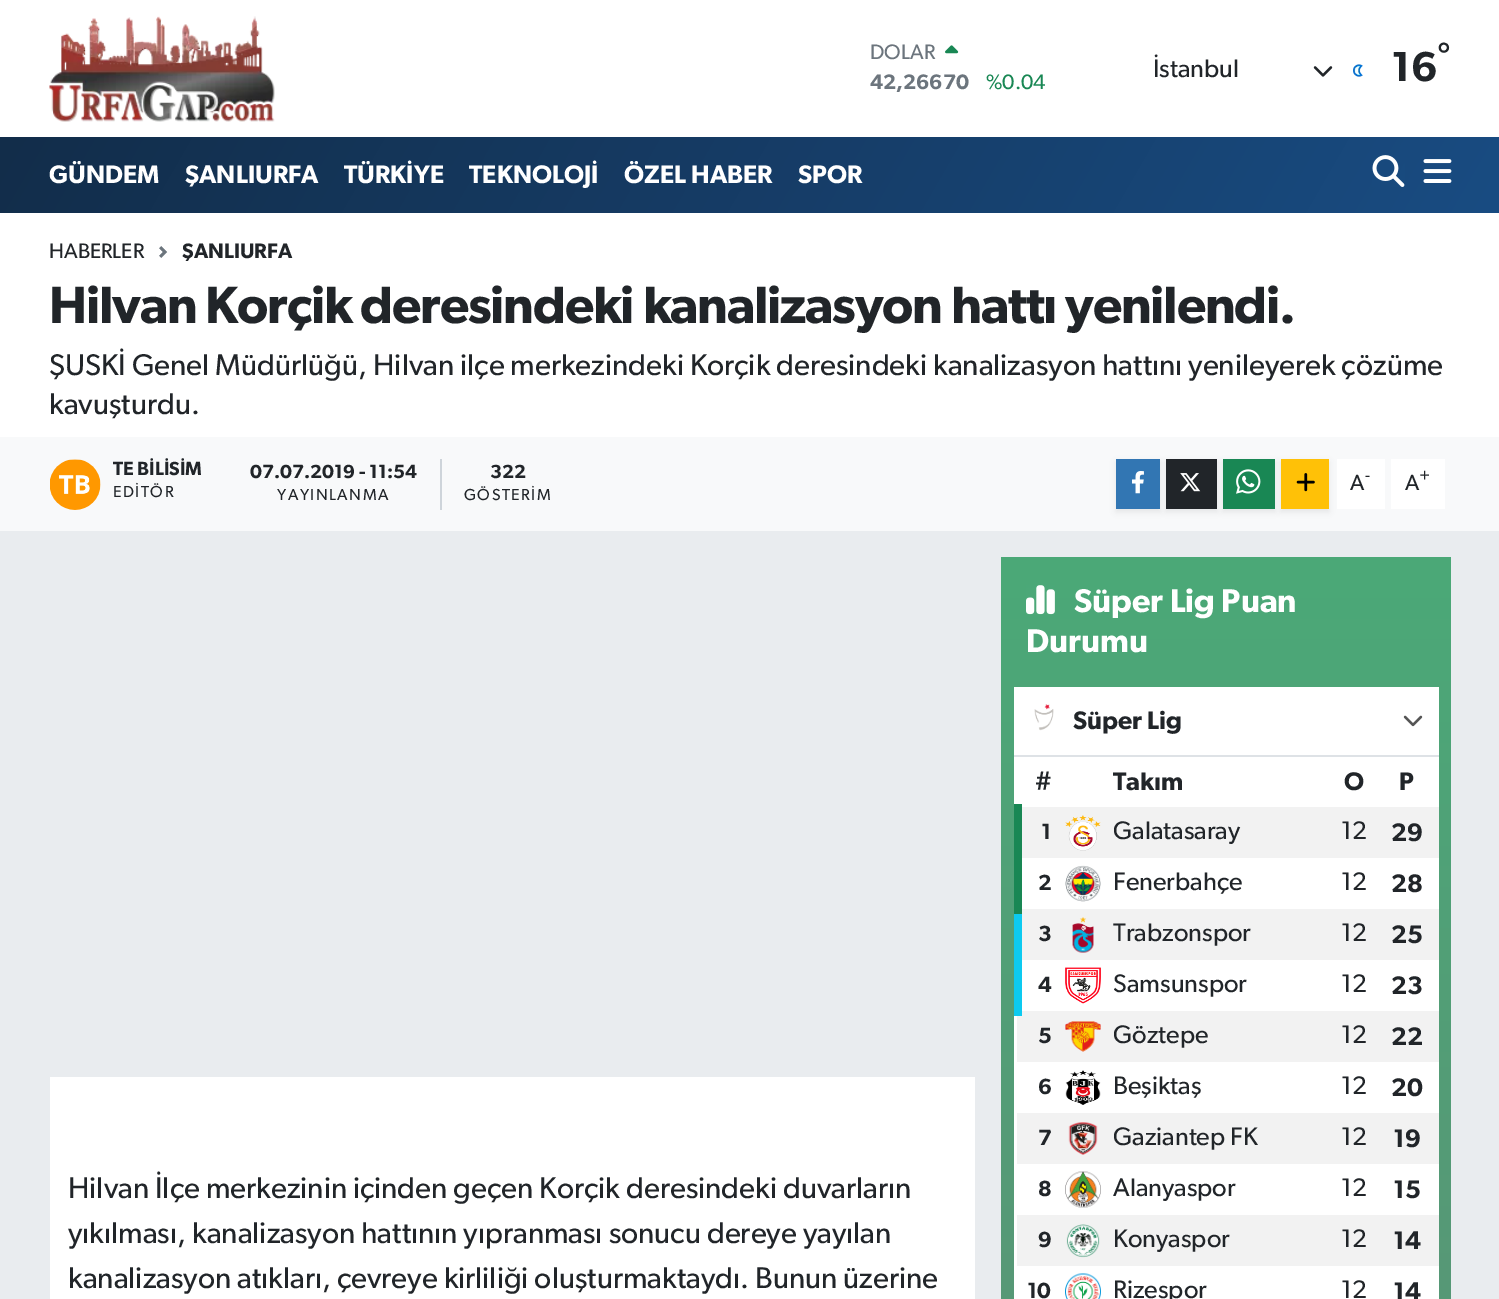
%!PS-Adobe-3.0
%%BoundingBox: 0 0 1499 1299
%%LanguageLevel: 3
%%Pages: 1
%%EndComments
%%BeginProlog
/m { moveto } bind def
/l { lineto } bind def
/h { closepath } bind def
/q { gsave } bind def
/Q { grestore } bind def
/fn { [ exch dup neg 0 0 3 -1 roll 0 0 ] selectfont } def
/tx { moveto show } def
/bx { rectfill } def
/al { dup .setfillconstantalpha .setstrokeconstantalpha } def
/rr { 5 dict begin { /r /h /w /y /x } { exch def } forall
  x r add y moveto x w add y 2 copy h add r arct x w add y h add x 1 index r arct
  x y h add x y r arct x y 2 copy exch w add exch r arct closepath end } def
/sh { 12 dict begin { /a /b /q /h /w /y /x } { exch def } forall gsave /was 0 def
  9 -2 -9 { dup b mul 4 div /e exch def 1 sub .425 mul 2.718 exch exp 1 add a .99 .min exch div /now exch def
    1 1 now sub 1 was sub div sub al /was now def
    w h .min e 2 mul add 0 gt { x e sub y e sub w e 2 mul add h e 2 mul add
      q e add b .6 mul add w h .min 2 div e add .min 0 .max rr fill } if } for grestore end } def
/im { 5 dict begin { /h /w /y /x /name } { exch def } forall
  gsave x y translate w h scale
  w h 8 [w 0 0 h 0 0] name (r) file false 3 colorimage grestore end } def
%%EndProlog
%%BeginSetup
<< /PageSize [1499 1299] /PageUsesTransparency true >> setpagedevice
%%EndSetup
%%Page: 1 1
0 .pushpdf14devicefilter
0 1299 translate 1 -1 scale
4 setmiterlimit
0.914 0.925 0.937 setrgbcolor
0 0 1499 1299 bx
1 setgray
0 0 1499 137 bx
(image0.raw) 49 16 226 106 im
/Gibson-Regular 21 fn
0.424 0.459 0.49 setrgbcolor
(DOLAR) 870 59 tx
(image1.raw) 945 45 14 9 im
/Gibson-SemiBold 21 fn
(42,26670) 870 89 tx
/Gibson-Regular 21 fn
0.098 0.529 0.329 setrgbcolor
(%0.04) 986 89 tx
/Gibson-Regular 25.5 fn
0.129 0.145 0.161 setrgbcolor
(İstanbul) 1153 77 tx
(image2.raw) 1313 66 20 11 im
(image3.raw) 1353 64 10 13 im
/Gibson-SemiBold 32 fn
(°) 1437 66 tx
/Gibson-SemiBold 42 fn
(16) 1391 81 tx
q 0 137 m 1499 137 l 1499 213 l 0 213 l h clip newpath
<< /ShadingType 2 /ColorSpace /DeviceRGB /Coords [171 -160 1329 509] /Extend [true true] /Function << /FunctionType 2 /Domain [0 1] /C0 [0.071 0.176 0.29] /C1 [0.098 0.298 0.51] /N 1 >> >> shfill Q
/Gibson-SemiBold 25.5 fn
1 setgray
(GÜNDEM) 49 183 tx
(ŞANLIURFA) 185 183 tx
(TÜRKİYE) 344 183 tx
(TEKNOLOJİ) 469 183 tx
(ÖZEL HABER) 624 183 tx
(SPOR) 798 183 tx
(image4.raw) 1372 155 33 32 im
(image5.raw) 1423 159 29 24 im
0 213 1499 224 bx
/Gibson-Regular 21 fn
0.129 0.145 0.161 setrgbcolor
(HABERLER) 49 258 tx
(image6.raw) 159 246 9 12 im
/Gibson-SemiBold 21 fn
(ŞANLIURFA) 182 258 tx
/Gibson-SemiBold 52.5 fn
49 323 m -1.2 0 (Hilvan Korçik deresindeki kanalizasyon hattı yenilendi.) ashow
/Gibson-Regular 30 fn
(ŞUSKİ Genel Müdürlüğü, Hilvan ilçe merkezindeki Korçik deresindeki kanalizasyon hattını yenileyerek çözüme) 49 375 tx
(kavuşturdu.) 49 414 tx
0.973 0.976 0.98 setrgbcolor
0 437 1499 94 bx
(image7.raw) 50 459 51 51 im
/Gibson-SemiBold 19.1 fn
0.129 0.145 0.161 setrgbcolor
(TE BİLİSİM) 113 475 tx
/Gibson-Regular 16 fn
113 497 m 1.5 0 (EDİTÖR) ashow
0.808 0.831 0.855 setrgbcolor
440 459 2 51 bx
/Gibson-SemiBold 19.1 fn
0.129 0.145 0.161 setrgbcolor
(07.07.2019 - 11:54) 250 478 tx
/Gibson-Regular 16 fn
277 500 m 1.5 0 (YAYINLANMA) ashow
/Gibson-SemiBold 19.1 fn
(322) 490 478 tx
/Gibson-Regular 16 fn
464 500 m 1.5 0 (GÖSTERİM) ashow
0 setgray
1116 462 44 50 0 3 0.07 sh
0.196 0.463 0.702 setrgbcolor
1116 459 44 50 bx
(image8.raw) 1132 471 12 23 im
0 setgray
1166 462 51 50 0 3 0.07 sh
0.129 0.145 0.161 setrgbcolor
1166 459 51 50 bx
(image9.raw) 1180 473 21 19 im
0 setgray
1223 462 52 50 0 3 0.07 sh
0.098 0.529 0.329 setrgbcolor
1223 459 52 50 bx
(image10.raw) 1236 469 25 25 im
1 setgray
1337 459 48 50 bx
0 setgray
1281 462 48 50 0 3 0.07 sh
1 0.757 0.027 setrgbcolor
1281 459 48 50 bx
(image11.raw) 1296 473 19 19 im
/Gibson-Regular 22 fn
0.129 0.145 0.161 setrgbcolor
(A) 1350 490 tx
/Gibson-Regular 17 fn
(-) 1365 481 tx
1 setgray
1391 459 54 50 bx
/Gibson-Regular 22 fn
0.129 0.145 0.161 setrgbcolor
(A) 1405 490 tx
/Gibson-Regular 17 fn
(+) 1419 481 tx
1 setgray
50 1077 925 222 bx
/Gibson-Regular 30 fn
0.129 0.145 0.161 setrgbcolor
(Hilvan İlçe merkezinin içinden geçen Korçik deresindeki duvarların) 68 1198 tx
(yıkılması, kanalizasyon hattının yıpranması sonucu dereye yayılan) 68 1243 tx
(kanalizasyon atıkları, çevreye kirliliği oluşturmaktaydı. Bunun üzerine) 68 1288 tx
q 1001 557 m 1451 557 l 1451 1299 l 1001 1299 l h clip newpath
<< /ShadingType 2 /ColorSpace /DeviceRGB /Coords [1226 557 1226 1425] /Extend [true true] /Function << /FunctionType 2 /Domain [0 1] /C0 [0.294 0.663 0.471] /C1 [0.349 0.584 0.463] /N 1 >> >> shfill Q
(image12.raw) 1026 585 29 30 im
/Gibson-SemiBold 33 fn
1 setgray
(Süper Lig Puan) 1074 612 tx
(Durumu) 1026 652 tx
1014 687 425 612 bx
0.871 0.886 0.902 setrgbcolor
1014 755 425 2 bx
(image13.raw) 1034 704 20 27 im
/Gibson-SemiBold 25.5 fn
0.129 0.145 0.161 setrgbcolor
(Süper Lig) 1073 729 tx
(image14.raw) 1403 715 20 12 im
(#) 1035 790 tx
(Takım) 1113 790 tx
(O) 1344 790 tx
(P) 1399 790 tx
0.949 setgray
1022 807 417 51 bx
/Gibson-SemiBold 22 fn
0.129 0.145 0.161 setrgbcolor
(1) 1041 839 tx
(image15.raw) 1065 815 36 36 im
/Gibson-Regular 25.5 fn
(Galatasaray) 1113 839 tx
(12) 1341 839 tx
/Gibson-SemiBold 25.5 fn
(29) 1391 841 tx
0.949 setgray
1017 1011 422 51 bx
0.051 0.792 0.941 setrgbcolor
1014 906 8 110 bx
0.098 0.529 0.329 setrgbcolor
1014 804 8 110 bx
/Gibson-SemiBold 22 fn
0.129 0.145 0.161 setrgbcolor
(2) 1038 890 tx
(image16.raw) 1065 865 36 37 im
/Gibson-Regular 25.5 fn
(Fenerbahçe) 1113 890 tx
(12) 1341 890 tx
/Gibson-SemiBold 25.5 fn
(28) 1391 892 tx
0.949 setgray
1022 909 417 51 bx
/Gibson-SemiBold 22 fn
0.129 0.145 0.161 setrgbcolor
(3) 1038 941 tx
(image17.raw) 1072 917 22 36 im
/Gibson-Regular 25.5 fn
(Trabzonspor) 1113 941 tx
(12) 1341 941 tx
/Gibson-SemiBold 25.5 fn
(25) 1391 943 tx
/Gibson-SemiBold 22 fn
(4) 1038 992 tx
(image18.raw) 1065 967 36 37 im
/Gibson-Regular 25.5 fn
(Samsunspor) 1113 992 tx
(12) 1341 992 tx
/Gibson-SemiBold 25.5 fn
(23) 1391 994 tx
/Gibson-SemiBold 22 fn
(5) 1038 1043 tx
(image19.raw) 1065 1021 36 31 im
/Gibson-Regular 25.5 fn
(Göztepe) 1113 1043 tx
(12) 1341 1043 tx
/Gibson-SemiBold 25.5 fn
(22) 1391 1045 tx
/Gibson-SemiBold 22 fn
(6) 1038 1094 tx
(image20.raw) 1065 1070 36 35 im
/Gibson-Regular 25.5 fn
(Beşiktaş) 1113 1094 tx
(12) 1341 1094 tx
/Gibson-SemiBold 25.5 fn
(20) 1391 1096 tx
0.949 setgray
1017 1113 422 51 bx
/Gibson-SemiBold 22 fn
0.129 0.145 0.161 setrgbcolor
(7) 1038 1145 tx
(image21.raw) 1068 1122 30 33 im
/Gibson-Regular 25.5 fn
(Gaziantep FK) 1113 1145 tx
(12) 1341 1145 tx
/Gibson-SemiBold 25.5 fn
(19) 1393 1147 tx
/Gibson-SemiBold 22 fn
(8) 1038 1196 tx
(image22.raw) 1065 1171 36 37 im
/Gibson-Regular 25.5 fn
(Alanyaspor) 1113 1196 tx
(12) 1341 1196 tx
/Gibson-SemiBold 25.5 fn
(15) 1393 1198 tx
0.949 setgray
1017 1215 422 51 bx
/Gibson-SemiBold 22 fn
0.129 0.145 0.161 setrgbcolor
(9) 1038 1247 tx
(image23.raw) 1066 1224 34 34 im
/Gibson-Regular 25.5 fn
(Konyaspor) 1113 1247 tx
(12) 1341 1247 tx
/Gibson-SemiBold 25.5 fn
(14) 1393 1249 tx
/Gibson-SemiBold 22 fn
(10) 1027 1298 tx
(image24.raw) 1065 1273 36 26 im
/Gibson-Regular 25.5 fn
(Rizespor) 1113 1298 tx
(12) 1341 1298 tx
/Gibson-SemiBold 25.5 fn
(14) 1393 1300 tx
.poppdf14devicefilter showpage
%%EOF
